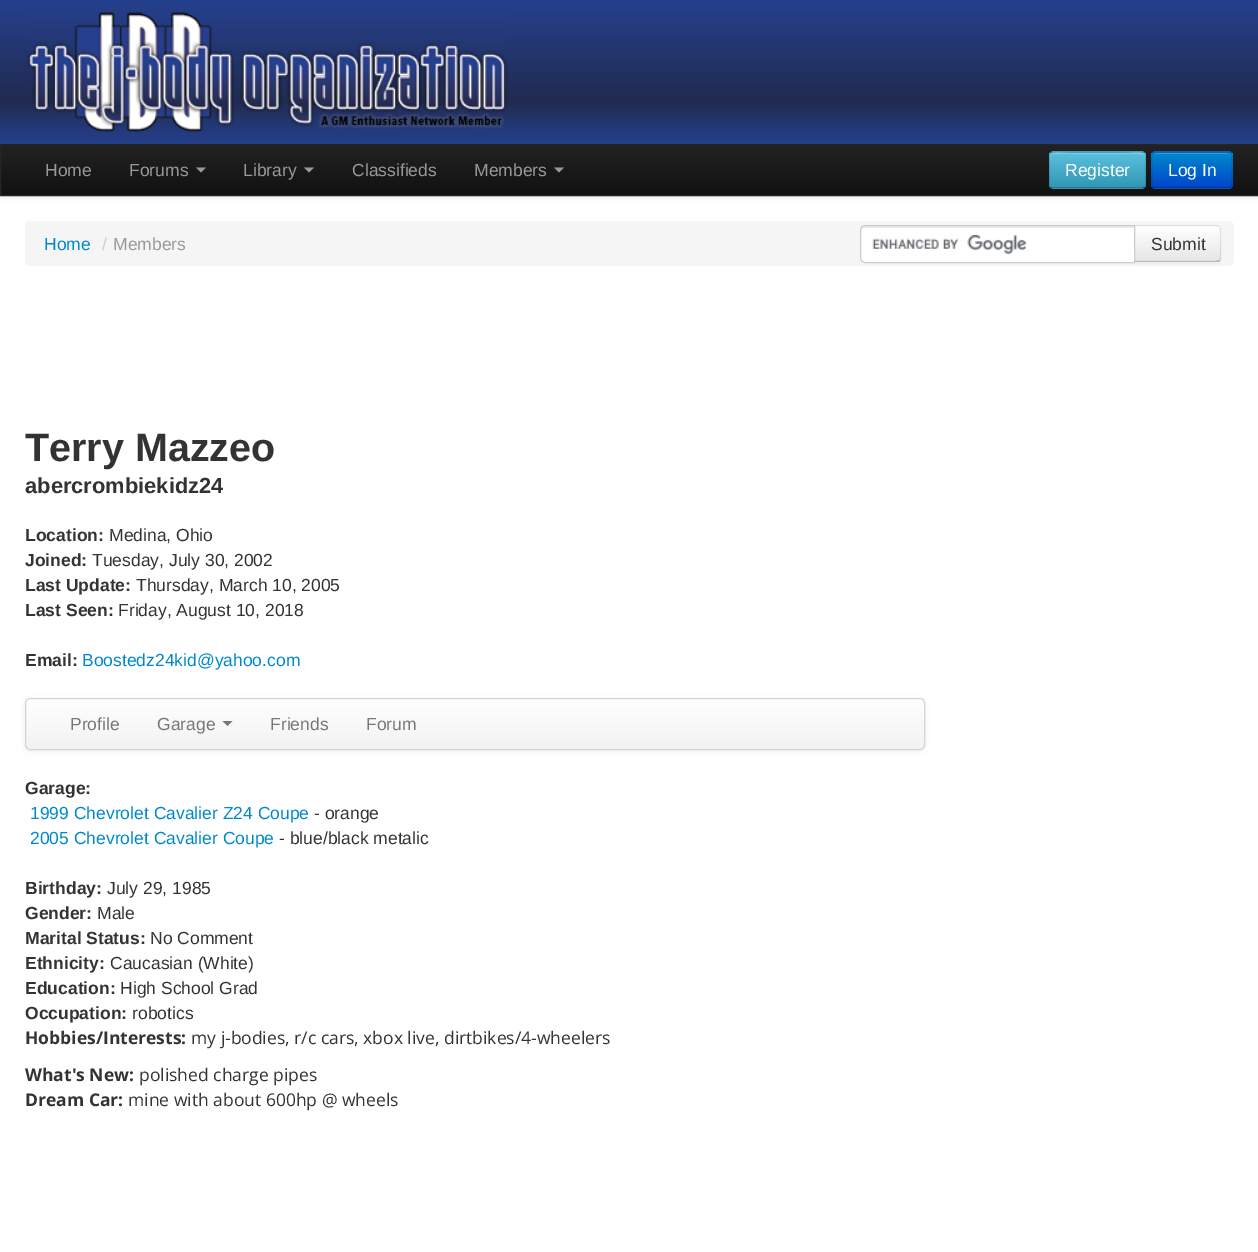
%!PS-Adobe-3.0
%%BoundingBox: 0 0 1258 1252
%%LanguageLevel: 3
%%Pages: 1
%%EndComments
%%BeginProlog
/m { moveto } bind def
/l { lineto } bind def
/c { curveto } bind def
/h { closepath } bind def
/f { fill } bind def
/S { stroke } bind def
/q { gsave } bind def
/Q { grestore } bind def
/w { setlinewidth } bind def
/fn { [ exch dup neg 0 0 3 -1 roll 0 0 ] selectfont } def
/tx { moveto show } def
/bx { rectfill } def
/al { dup .setfillconstantalpha .setstrokeconstantalpha } def
/rr { 5 dict begin { /r /h /w /y /x } { exch def } forall
  x r add y moveto x w add y 2 copy h add r arct x w add y h add x 1 index r arct
  x y h add x y r arct x y 2 copy exch w add exch r arct closepath end } def
/sh { 12 dict begin { /a /b /q /h /w /y /x } { exch def } forall gsave /was 0 def
  9 -2 -9 { dup b mul 4 div /e exch def 1 sub .425 mul 2.718 exch exp 1 add a .99 .min exch div /now exch def
    1 1 now sub 1 was sub div sub al /was now def
    w h .min e 2 mul add 0 gt { x e sub y e sub w e 2 mul add h e 2 mul add
      q e add b .6 mul add w h .min 2 div e add .min 0 .max rr fill } if } for grestore end } def
/im { 5 dict begin { /h /w /y /x /name } { exch def } forall
  gsave x y translate w h scale
  w h 8 [w 0 0 h 0 0] name (r) file false 3 colorimage grestore end } def
%%EndProlog
%%BeginSetup
<< /PageSize [1258 1252] /PageUsesTransparency true >> setpagedevice
%%EndSetup
%%Page: 1 1
0 .pushpdf14devicefilter
0 1252 translate 1 -1 scale
4 setmiterlimit
1 setgray
0 0 1258 1252 bx
q 0 0 m 1258 0 l 1258 144 l 0 144 l h clip newpath
<< /ShadingType 2 /ColorSpace /DeviceRGB /Coords [629 0 629 144] /Extend [true true] /Function << /FunctionType 3 /Domain [0 1] /Functions [<< /FunctionType 2 /Domain [0 1] /C0 [0.145 0.251 0.557] /C1 [0.129 0.169 0.314] /N 1 >> << /FunctionType 2 /Domain [0 1] /C0 [0.129 0.169 0.314] /C1 [0.145 0.251 0.557] /N 1 >>] /Bounds [0.7] /Encode [0 1 0 1] >> >> shfill Q
(image0.raw) 26 12 482 120 im
0 setgray
0 145 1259 53 0 2.5 0.07 sh
q 1 145 m 1258 145 l 1258 195 l 1 195 l h clip newpath
<< /ShadingType 2 /ColorSpace /DeviceRGB /Coords [629 145 629 195] /Extend [true true] /Function << /FunctionType 2 /Domain [0 1] /C0 [0.133 0.133 0.133] /C1 [0.067 0.067 0.067] /N 1 >> >> shfill Q
0.145 setgray
0.5 144.5 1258 51 rectstroke
/LiberationSans-Regular 17.5 fn
0.6 setgray
(Home) 45 176 tx
(Forums) 129 176 tx
196 167.5 m 206 167.5 l 201 172.5 l h f
(Library) 243 176 tx
304 167.5 m 314 167.5 l 309 172.5 l h f
(Classifieds) 352 176 tx
(Members) 474 176 tx
554 167.5 m 564 167.5 l 559 172.5 l h f
0.286 0.686 0.804 setrgbcolor
1049 151 97 38 5 rr f
q
1049 151 97 38 5 rr clip newpath
q 1049 153 m 1146 153 l 1146 188 l 1049 188 l h clip newpath
<< /ShadingType 2 /ColorSpace /DeviceRGB /Coords [1098 153 1098 188] /Extend [true true] /Function << /FunctionType 2 /Domain [0 1] /C0 [0.357 0.753 0.871] /C1 [0.184 0.588 0.706] /N 1 >> >> shfill Q
Q
0.2 al
1 setgray
1054 154 m 1141 154 l 1143 154 1145 155 1145 158 c 1145 149 1131 153 1126 153 c 1068 153 l 1064 153 1050 149 1050 158 c 1050 155 1052 154 1054 154 c h f
0.25 al
0 setgray
1.2 w
1144.5 187 m 1143.5 187.5 1142.5 188 1141 188 c 1054 188 l 1052.5 188 1051.5 187.5 1050.5 187 c S
0.1 al
1050.5 187 m 1048.5 185 1049.5 181.5 1049.5 179 c 1049.5 170 l 1049.5 149 1046.5 152 1068.5 152 c 1126.5 152 l 1148.5 152 1145.5 149 1145.5 170 c 1145.5 179 l 1145.5 181.5 1146.5 185 1144.5 187 c S
1 al
1 setgray
(Register) 1065 176 tx
0 0.427 0.8 setrgbcolor
1151 151 82 38 5 rr f
q
1151 151 82 38 5 rr clip newpath
q 1151 153 m 1233 153 l 1233 188 l 1151 188 l h clip newpath
<< /ShadingType 2 /ColorSpace /DeviceRGB /Coords [1192 153 1192 188] /Extend [true true] /Function << /FunctionType 2 /Domain [0 1] /C0 [0 0.533 0.8] /C1 [0 0.267 0.8] /N 1 >> >> shfill Q
Q
0.2 0.624 0.839 setrgbcolor
1156 154 m 1228 154 l 1230 154 1231 155 1231 158 c 1231 156 1231 155 1229 154 c 1227 153 l 1157 153 l 1154 154 l h f
0.25 al
0 setgray
1230.5 187 m 1228 188 l 1156 188 l 1153 187 l S
0.1 al
1153 187 m 1151 185 1152 181.5 1152 179 c 1152 170 l 1152 150.5 1148.5 152 1168 152 c 1215.5 152 l 1235 152 1232 150.5 1232 170 c 1232 179 l 1232 181.5 1232.5 185 1230.5 187 c S
1 al
1 setgray
(Log In) 1168 176 tx
0.961 setgray
25 221 1209 45 5 rr f
0 0.533 0.8 setrgbcolor
(Home) 44 250 tx
0.8 setgray
(/) 102 250 tx
0.6 setgray
(Members) 113 250 tx
0 setgray
1134 226 87 38 5 1 0.05 sh
0.961 setgray
1134 225 m 1216 225 l 1219 225 1221 227 1221 230 c 1221 258 l 1221 261 1219 263 1216 263 c 1134 263 l h f
q
1134 225 m 1216 225 l 1219 225 1221 227 1221 230 c 1221 258 l 1221 261 1219 263 1216 263 c 1134 263 l h clip newpath
q 1135 226 m 1221 226 l 1221 261 l 1135 261 l h clip newpath
<< /ShadingType 2 /ColorSpace /DeviceRGB /Coords [1178 226 1178 261] /Extend [true true] /Function << /FunctionType 2 /Domain [0 1] /C0 [1 1 1] /C1 [0.902 0.902 0.902] /N 1 >> >> shfill Q
Q
0.1 al
0 setgray
1134 225 m 1135 226 l 1216 226 l 1219 227 l 1220 227 l 1219 226 1218 225 1216 225 c h f
1219.5 226.5 m 1220.5 227.5 1221 228.5 1221 230 c 1221 258 l 1221 259 1220.5 260 1219.5 261 c 1219 260 l 1219.5 259.5 1220 259 1220 258 c 1220 230 l 1220 229 1219.5 228 1219 227.5 c h f
1 al
0.702 setgray
1220 261 m 1219 262 1217 262 1216 262 c 1134 262 l 1135 261 l 1216 261 l 1219 260 l h f
1 setgray
865 225 m 1135 225 l 1135 263 l 865 263 l 862 263 860 261 860 258 c 860 230 l 860 227 862 225 865 225 c h f
(image1.raw) 872 235 155 19 im
0.925 setgray
865 228 m 1134 228 l 1134 226 l 865 226 l 862 226 861 228 861 231 c 861 229 863 228 865 228 c h f
0.8 setgray
1 w
865 225.5 m 1134.5 225.5 l 1134.5 262.5 l 865 262.5 l 862.5 262.5 860.5 260.5 860.5 258 c 860.5 230 l 860.5 227.5 862.5 225.5 865 225.5 c h S
0.2 setgray
(Submit) 1151 250 tx
/LiberationSans-Bold 39.5 fn
(Terry Mazzeo) 25 461 tx
/LiberationSans-Bold 21.9 fn
(abercrombiekidz24) 25 493 tx
/LiberationSans-Bold 17.5 fn
(Location:) 25 541 tx
/LiberationSans-Regular 17.5 fn
(Medina, Ohio) 109 541 tx
/LiberationSans-Bold 17.5 fn
(Joined:) 25 566 tx
/LiberationSans-Regular 17.5 fn
(Tuesday, July 30, 2002) 92 566 tx
/LiberationSans-Bold 17.5 fn
(Last Update:) 25 591 tx
/LiberationSans-Regular 17.5 fn
(Thursday, March 10, 2005) 136 591 tx
/LiberationSans-Bold 17.5 fn
(Last Seen:) 25 616 tx
/LiberationSans-Regular 17.5 fn
(Friday, August 10, 2018) 118 616 tx
/LiberationSans-Bold 17.5 fn
(Email:) 25 666 tx
/LiberationSans-Regular 17.5 fn
0 0.533 0.8 setrgbcolor
(Boostedz24kid@yahoo.com) 82 666 tx
0 setgray
25 699 900 52 5 2.5 0.07 sh
q
25 698 900 52 5 rr clip newpath
q 25 699 m 925 699 l 925 749 l 25 749 l h clip newpath
<< /ShadingType 2 /ColorSpace /DeviceRGB /Coords [475 699 475 749] /Extend [true true] /Function << /FunctionType 2 /Domain [0 1] /C0 [1 1 1] /C1 [0.949 0.949 0.949] /N 1 >> >> shfill Q
Q
0.831 setgray
25.5 698.5 899 51 4.5 rr S
0.467 setgray
(Profile) 70 730 tx
(Garage) 157 730 tx
222.5 721 m 232.5 721 l 227.5 726 l h f
(Friends) 270 730 tx
(Forum) 366 730 tx
/LiberationSans-Bold 17.5 fn
0.2 setgray
(Garage:) 25 794 tx
/LiberationSans-Regular 17.5 fn
0 0.533 0.8 setrgbcolor
(1999 Chevrolet Cavalier Z24 Coupe) 30 819 tx
0.2 setgray
(- orange) 314 819 tx
0 0.533 0.8 setrgbcolor
(2005 Chevrolet Cavalier Coupe) 30 844 tx
0.2 setgray
(- blue/black metalic) 279 844 tx
/LiberationSans-Bold 17.5 fn
(Birthday:) 25 894 tx
/LiberationSans-Regular 17.5 fn
(July 29, 1985) 107 894 tx
/LiberationSans-Bold 17.5 fn
(Gender:) 25 919 tx
/LiberationSans-Regular 17.5 fn
(Male) 97 919 tx
/LiberationSans-Bold 17.5 fn
(Marital Status:) 25 944 tx
/LiberationSans-Regular 17.5 fn
(No Comment) 150 944 tx
/LiberationSans-Bold 17.5 fn
(Ethnicity:) 25 969 tx
/LiberationSans-Regular 17.5 fn
(Caucasian \(White\)) 110 969 tx
/LiberationSans-Bold 17.5 fn
(Education:) 25 994 tx
/LiberationSans-Regular 17.5 fn
(High School Grad) 120 994 tx
/LiberationSans-Bold 17.5 fn
(Occupation:) 25 1019 tx
/LiberationSans-Regular 17.5 fn
(robotics) 132 1019 tx
/OpenSans-Bold 17.5 fn
(Hobbies/Interests:) 25 1044 tx
/OpenSans-Regular 17.5 fn
(my j-bodies, r/c cars, xbox live, dirtbikes/4-wheelers) 191 1044 tx
/OpenSans-Bold 17.5 fn
(What's New:) 25 1081 tx
/OpenSans-Regular 17.5 fn
(polished charge pipes) 139 1081 tx
/OpenSans-Bold 17.5 fn
(Dream Car:) 25 1106 tx
/OpenSans-Regular 17.5 fn
(mine with about 600hp @ wheels) 128 1106 tx
.poppdf14devicefilter showpage
%%EOF
